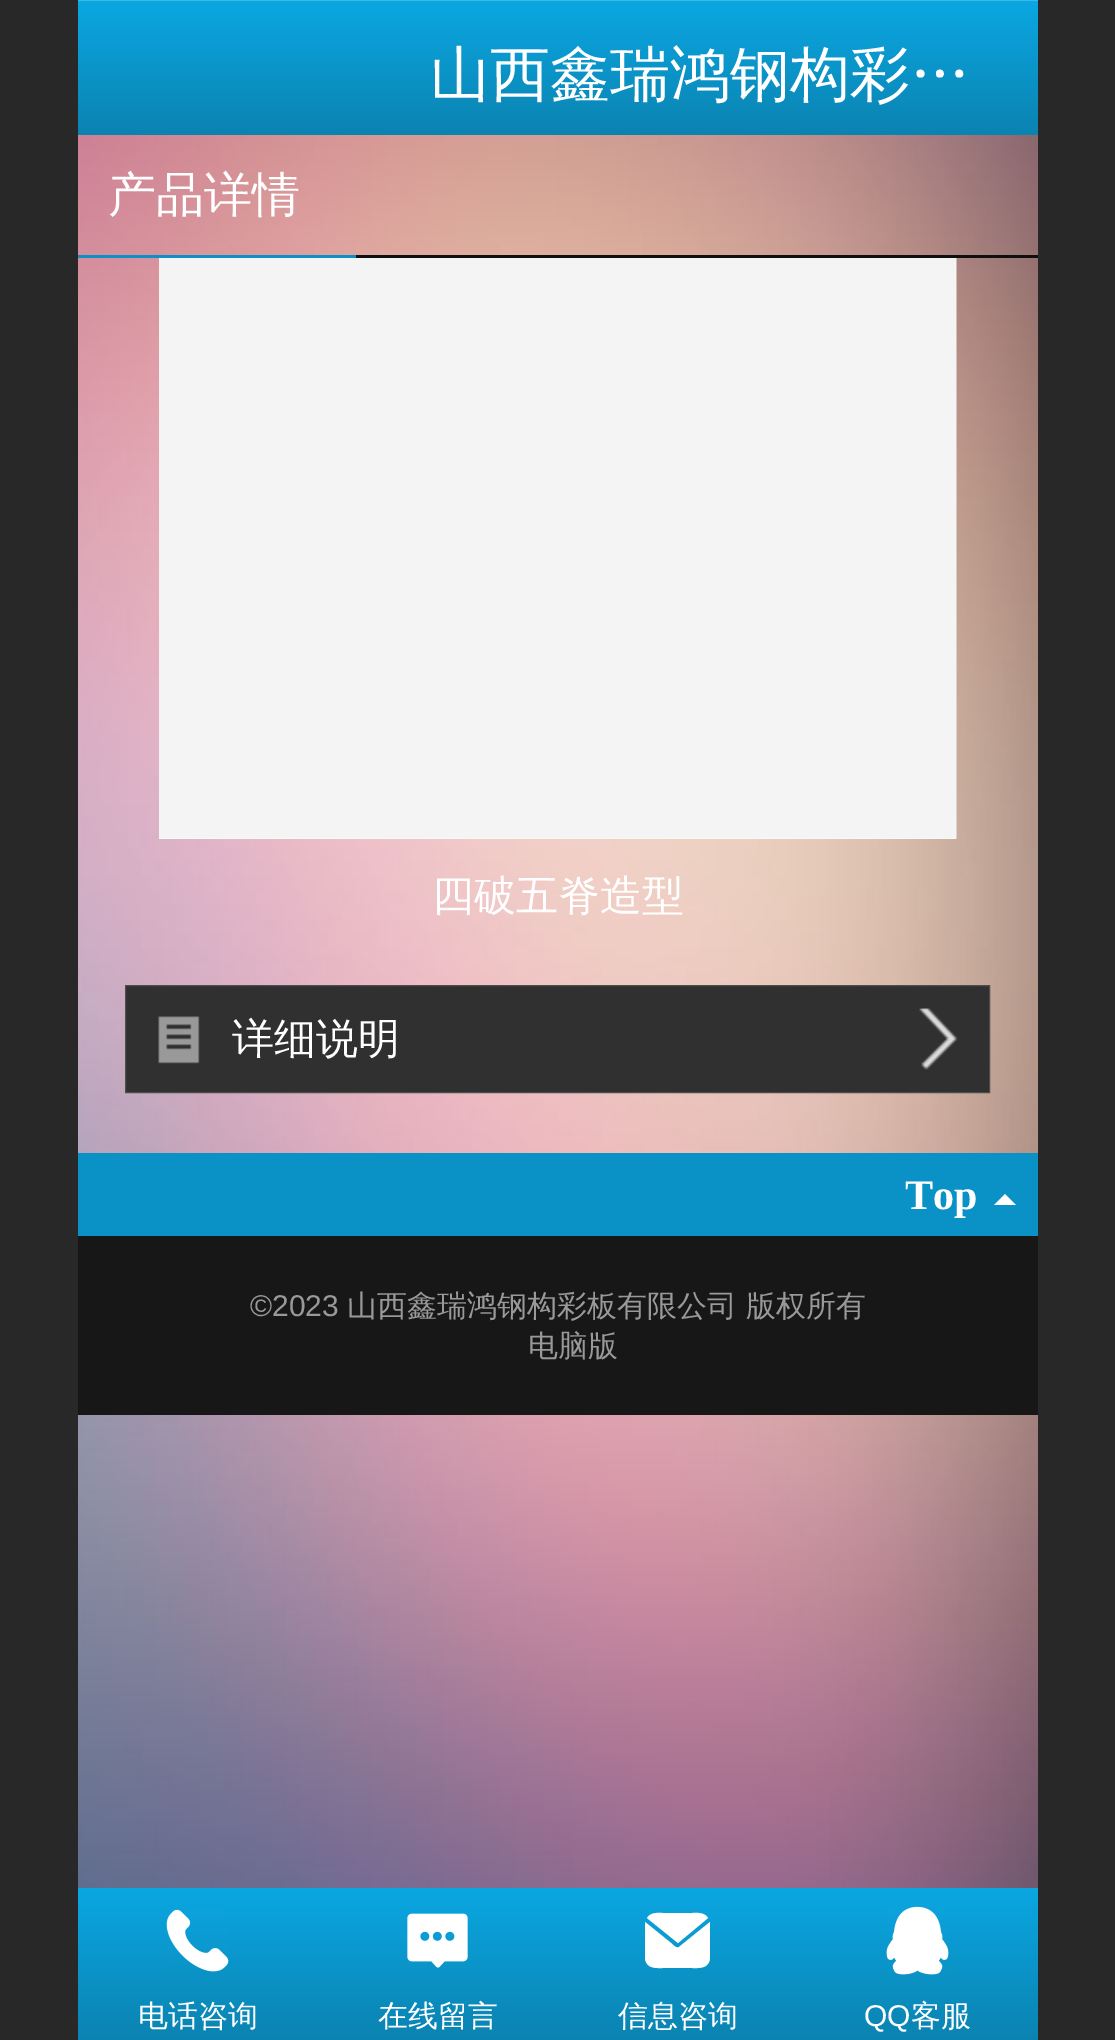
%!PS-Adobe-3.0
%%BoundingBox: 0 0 1115 2040
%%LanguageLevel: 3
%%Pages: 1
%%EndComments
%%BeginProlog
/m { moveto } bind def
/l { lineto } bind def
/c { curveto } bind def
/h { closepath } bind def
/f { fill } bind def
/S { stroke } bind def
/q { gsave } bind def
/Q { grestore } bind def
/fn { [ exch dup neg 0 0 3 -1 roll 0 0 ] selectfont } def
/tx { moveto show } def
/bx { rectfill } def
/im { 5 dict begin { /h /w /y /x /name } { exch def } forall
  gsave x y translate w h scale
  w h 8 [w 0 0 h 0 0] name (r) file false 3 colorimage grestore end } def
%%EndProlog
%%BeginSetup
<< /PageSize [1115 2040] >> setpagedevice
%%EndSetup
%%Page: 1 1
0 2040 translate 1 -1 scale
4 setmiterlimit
1 setgray
0 0 1115 2040 bx
0.157 setgray
0 0 78 2040 bx
q 78 1 m 1038 1 l 1038 135 l 78 135 l h clip newpath
<< /ShadingType 2 /ColorSpace /DeviceRGB /Coords [78 135 78 0] /Extend [true true] /Function << /FunctionType 2 /Domain [0 1] /C0 [0.039 0.514 0.694] /C1 [0.043 0.655 0.886] /N 1 >> >> shfill Q
0.235 0.725 0.91 setrgbcolor
78 0 960 1 bx
/WenQuanYiZenHei-Medium 60 fn
1 setgray
(山西鑫瑞鸿钢构彩…) 430 95 tx
(image0.raw) 78 135 960 1753 im
0.059 setgray
356 255 682 3 bx
0.039 0.573 0.78 setrgbcolor
78 255 278 3 bx
/WenQuanYiZenHei-Medium 48 fn
1 setgray
(产品详情) 108 211 tx
159 258 797 581 bx
(image1.raw) 159 258 798 581 im
/WenQuanYiZenHei-Medium 42 fn
(四破五脊造型) 432 910 tx
0.188 setgray
125.5 985.5 m 989.5 985.5 l 989.5 1092.5 l 125.5 1092.5 l h q f Q
0.302 setgray
S
(image2.raw) 158 1016 42 48 im
1 setgray
(详细说明) 232 1053 tx
(image3.raw) 919 1008 39 62 im
0.09 setgray
78 1236 960 179 bx
0.039 0.573 0.78 setrgbcolor
78 1153 960 83 bx
/LiberationSerif-Bold 42 fn
1 setgray
(Top) 905 1209 tx
1016 1205 m 994 1205 l 1005 1194 l h f
/LiberationSans-Regular 30 fn
0.6 setgray
(©2023) 250 1316 tx
/WenQuanYiZenHei-Medium 30 fn
(山西鑫瑞鸿钢构彩板有限公司 版权所有) 347 1316 tx
(电脑版) 528 1356 tx
q 78 1888 m 1038 1888 l 1038 2040 l 78 2040 l h clip newpath
<< /ShadingType 2 /ColorSpace /DeviceRGB /Coords [78 2040 78 1888] /Extend [true true] /Function << /FunctionType 2 /Domain [0 1] /C0 [0.039 0.514 0.694] /C1 [0.043 0.655 0.886] /N 1 >> >> shfill Q
(image4.raw) 166 1909 63 63 im
1 setgray
(电话咨询) 138 2026 tx
(image5.raw) 407 1913 61 55 im
(在线留言) 378 2026 tx
678 1943 m 708 1918 l 704 1912 698 1913 692 1913 c 663 1913 l 657 1913 651 1912 647 1918 c h 679 1947 m 677 1949 673 1945 671 1943 c 645 1922 l 645 1959 l 647 1969 656 1968 663 1968 c 692 1968 l 699 1968 708 1969 710 1959 c 710 1922 l h f
(信息咨询) 618 2026 tx
(image6.raw) 886 1906 63 69 im
/LiberationSans-Regular 30 fn
(QQ) 864 2026 tx
/WenQuanYiZenHei-Medium 30 fn
(客服) 911 2026 tx
0.157 setgray
1038 0 77 2040 bx
showpage
%%EOF
